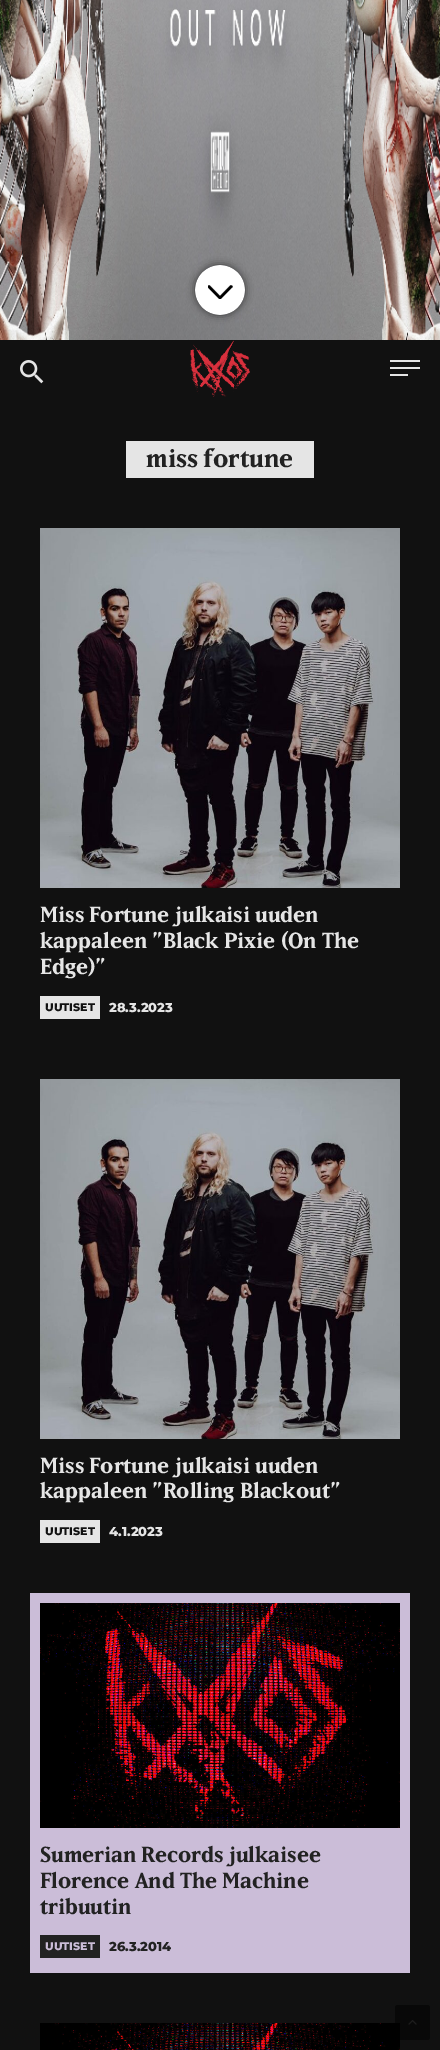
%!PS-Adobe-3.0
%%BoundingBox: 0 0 440 2050
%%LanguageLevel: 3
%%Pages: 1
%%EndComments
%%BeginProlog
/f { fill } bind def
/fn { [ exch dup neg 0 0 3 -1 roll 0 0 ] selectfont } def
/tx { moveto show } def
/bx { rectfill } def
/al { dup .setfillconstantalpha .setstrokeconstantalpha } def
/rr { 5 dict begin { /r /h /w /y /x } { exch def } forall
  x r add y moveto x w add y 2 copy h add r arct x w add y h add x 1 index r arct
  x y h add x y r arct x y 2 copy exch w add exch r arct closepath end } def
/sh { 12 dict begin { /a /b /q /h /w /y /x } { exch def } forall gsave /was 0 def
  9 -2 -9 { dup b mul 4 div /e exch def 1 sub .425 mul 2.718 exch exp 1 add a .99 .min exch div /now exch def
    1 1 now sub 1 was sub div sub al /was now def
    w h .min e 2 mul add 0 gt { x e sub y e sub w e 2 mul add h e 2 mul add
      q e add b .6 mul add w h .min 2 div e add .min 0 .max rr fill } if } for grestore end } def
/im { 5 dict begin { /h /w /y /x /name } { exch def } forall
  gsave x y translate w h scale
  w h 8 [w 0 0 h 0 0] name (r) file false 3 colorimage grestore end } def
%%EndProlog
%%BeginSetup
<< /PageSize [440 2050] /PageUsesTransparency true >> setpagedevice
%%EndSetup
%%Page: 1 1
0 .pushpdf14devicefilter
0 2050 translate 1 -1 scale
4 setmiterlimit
0.067 setgray
0 0 440 2050 bx
(image0.raw) 0 0 440 340 im
0.2 setgray
195 265 50 50 25 4 1 sh
(image1.raw) 195 265 50 50 im
(image2.raw) 190 340 60 57 im
(image3.raw) 20 360 24 24 im
0.898 setgray
390 374 18 2 bx
390 360 30 2 bx
390 367 30 2 bx
126 441 188 37 bx
/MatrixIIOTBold-Bold 25 fn
0.133 setgray
(miss fortune) 146 467 tx
(image4.raw) 40 528 360 360 im
/MatrixIIOTBold-Bold 21.5 fn
0.898 setgray
(Miss Fortune julkaisi uuden) 40 922 tx
(kappaleen ”Black Pixie \(On The) 40 948 tx
(Edge\)”) 40 974 tx
40 996 60 23 bx
/Montserrat-ExtraBold 11 fn
0.067 setgray
(UUTISET) 45 1011 tx
/Montserrat-ExtraBold 13 fn
0.898 setgray
(28.3.2023) 109 1012 tx
(image5.raw) 40 1079 360 360 im
/MatrixIIOTBold-Bold 21.5 fn
(Miss Fortune julkaisi uuden) 40 1473 tx
(kappaleen ”Rolling Blackout”) 40 1498 tx
40 1520 60 23 bx
/Montserrat-ExtraBold 11 fn
0.067 setgray
(UUTISET) 45 1535 tx
/Montserrat-ExtraBold 13 fn
0.898 setgray
(4.1.2023) 109 1536 tx
0.796 0.741 0.847 setrgbcolor
30 1593 380 380 bx
(image6.raw) 40 1603 360 225 im
/MatrixIIOTBold-Bold 21.5 fn
0.133 setgray
(Sumerian Records julkaisee) 40 1862 tx
(Florence And The Machine) 40 1888 tx
(tribuutin) 40 1914 tx
40 1935 60 23 bx
/Montserrat-ExtraBold 11 fn
0.796 0.741 0.847 setrgbcolor
(UUTISET) 45 1950 tx
/Montserrat-ExtraBold 13 fn
0.133 setgray
(26.3.2014) 109 1951 tx
(image7.raw) 40 2023 360 27 im
0.5 al
0 setgray
395 2005 35 35 2.5 rr f
1 al
(image8.raw) 408 2020 9 5 im
.poppdf14devicefilter showpage
%%EOF
